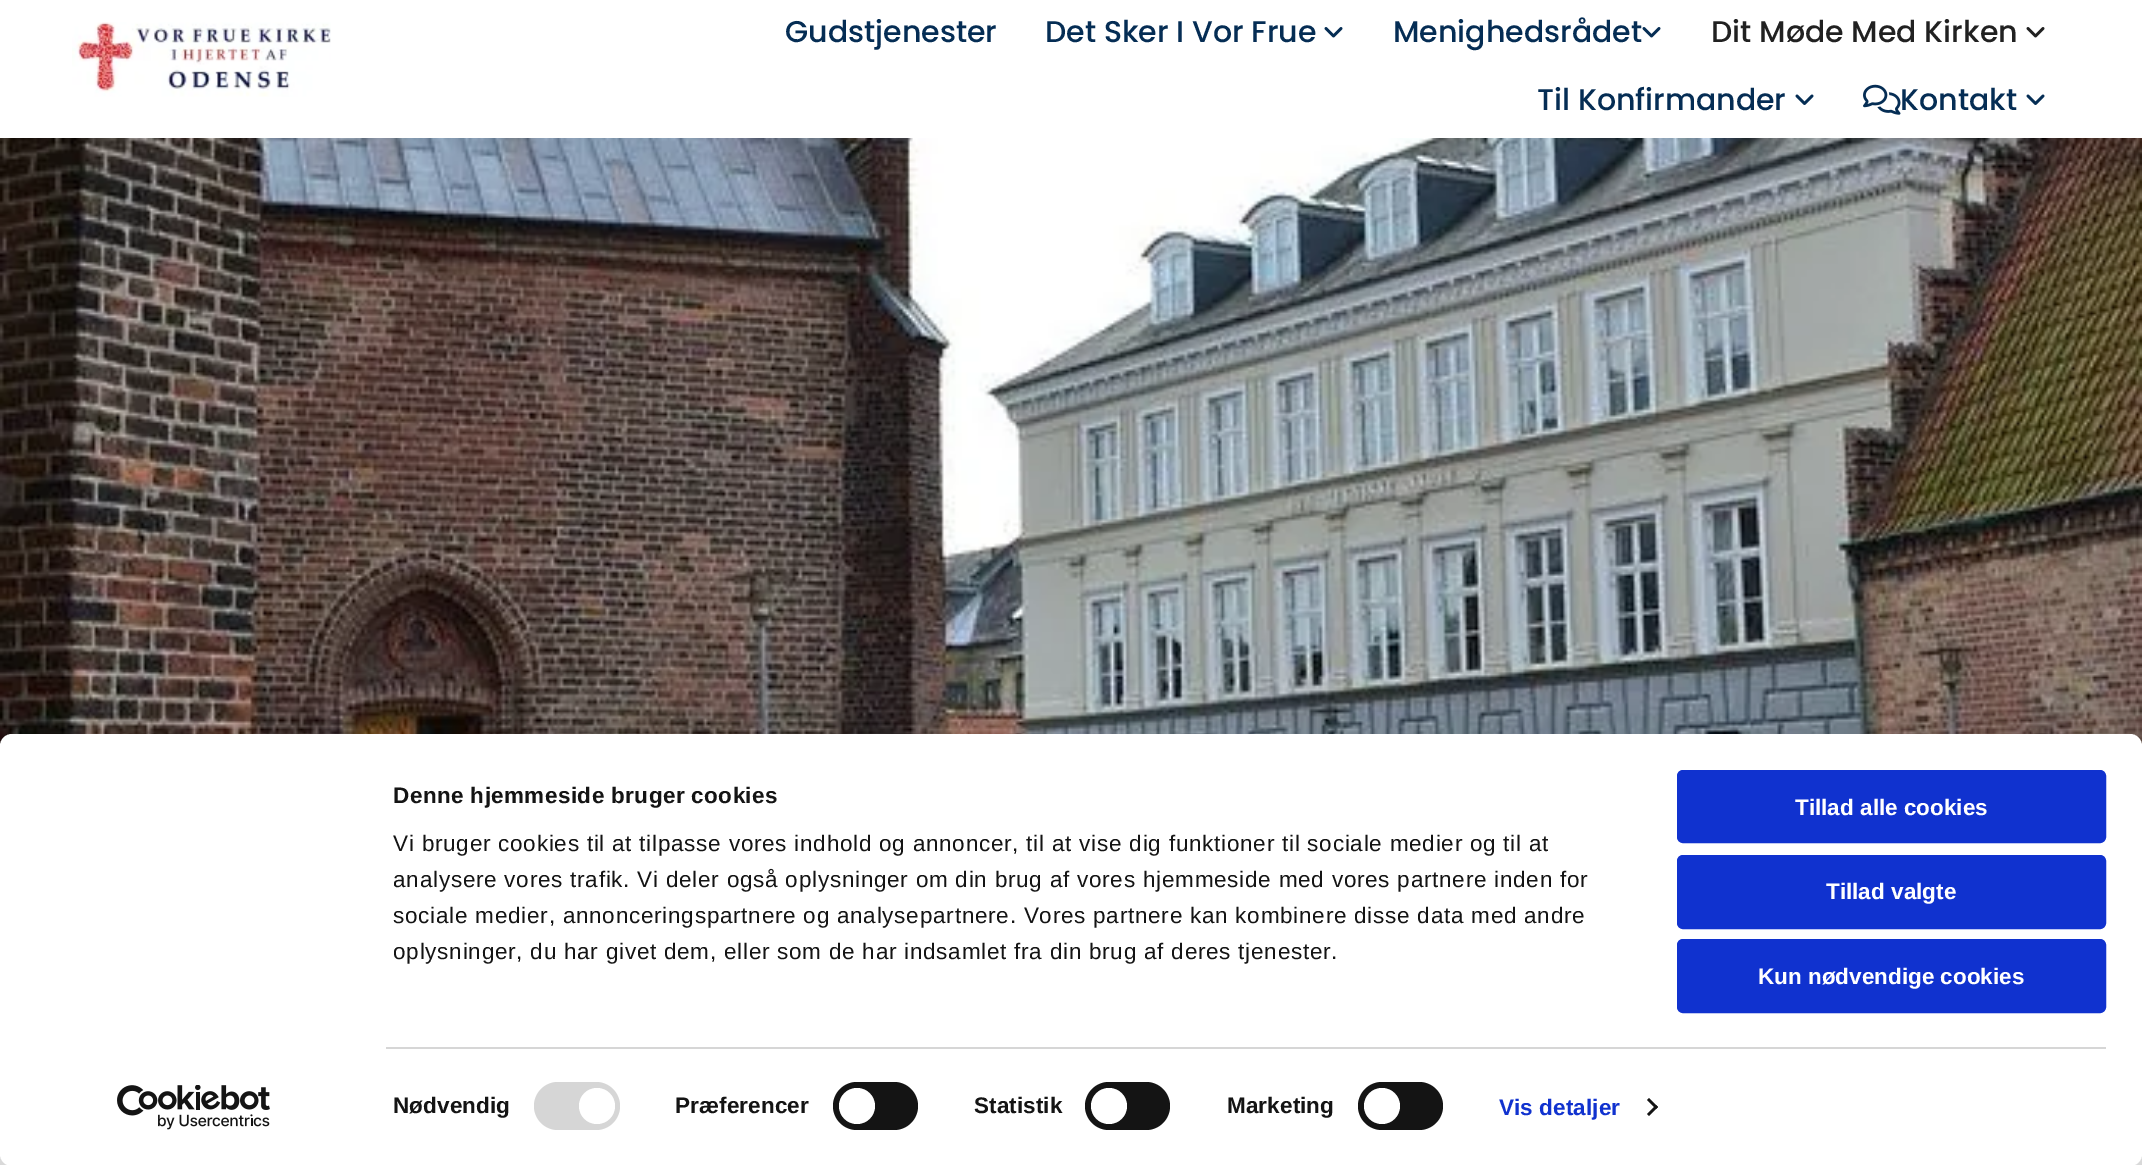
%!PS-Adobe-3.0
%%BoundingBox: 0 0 2142 1165
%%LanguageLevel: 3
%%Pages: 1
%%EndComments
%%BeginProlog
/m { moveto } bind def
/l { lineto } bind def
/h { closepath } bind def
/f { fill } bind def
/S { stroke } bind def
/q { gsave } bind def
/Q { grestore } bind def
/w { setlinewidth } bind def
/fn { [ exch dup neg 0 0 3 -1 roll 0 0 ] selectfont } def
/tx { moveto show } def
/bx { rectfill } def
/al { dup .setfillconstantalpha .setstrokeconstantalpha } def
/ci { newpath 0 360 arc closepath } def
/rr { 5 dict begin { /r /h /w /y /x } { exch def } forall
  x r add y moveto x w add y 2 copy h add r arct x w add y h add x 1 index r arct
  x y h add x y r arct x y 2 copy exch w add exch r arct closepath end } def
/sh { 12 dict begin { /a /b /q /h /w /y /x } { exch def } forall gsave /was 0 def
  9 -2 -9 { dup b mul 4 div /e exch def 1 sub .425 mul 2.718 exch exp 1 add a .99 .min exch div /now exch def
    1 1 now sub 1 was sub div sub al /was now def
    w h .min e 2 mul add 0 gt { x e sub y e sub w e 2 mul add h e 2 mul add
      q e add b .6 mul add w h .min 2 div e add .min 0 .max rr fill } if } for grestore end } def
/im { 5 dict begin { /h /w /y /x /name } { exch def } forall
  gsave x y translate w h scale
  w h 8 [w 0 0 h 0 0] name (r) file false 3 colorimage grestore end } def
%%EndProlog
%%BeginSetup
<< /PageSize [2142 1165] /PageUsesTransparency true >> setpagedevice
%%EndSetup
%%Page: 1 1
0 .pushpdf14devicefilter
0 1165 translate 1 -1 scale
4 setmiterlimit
1 setgray
0 0 2142 1165 bx
(image0.raw) 72 22 259 75 im
/Poppins-Medium 30 fn
0.02 0.176 0.329 setrgbcolor
(Gudstjenester) 785 42 tx
(Det Sker I Vor Frue) 1045 42 tx
(image1.raw) 1324 27 19 11 im
(Menighedsrådet) 1393 42 tx
(image1.raw) 1642 27 19 11 im
0.129 setgray
(Dit Møde Med Kirken) 1711 42 tx
(image2.raw) 2026 27 19 11 im
0.02 0.176 0.329 setrgbcolor
(Til Konfirmander) 1537 110 tx
(image3.raw) 1795 94 19 11 im
(image4.raw) 1863 84 38 31 im
(Kontakt) 1900 110 tx
(image3.raw) 2026 94 19 11 im
(image5.raw) 0 138 2142 608 im
0 setgray
0 779 2142 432 12 52.5 0.3 sh
1 setgray
0 734 2142 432 12 rr f
/LiberationSans-Bold 22.5 fn
0.078 setgray
393 803 m 0.4 0 (Denne hjemmeside bruger cookies) ashow
/LiberationSans-Regular 22.5 fn
393 851 m 0.75 0 (Vi bruger cookies til at tilpasse vores indhold og annoncer, til at vise dig funktioner til sociale medier og til at) ashow
393 887 m 0.75 0 (analysere vores trafik. Vi deler også oplysninger om din brug af vores hjemmeside med vores partnere inden for) ashow
393 923 m 0.75 0 (sociale medier, annonceringspartnere og analysepartnere. Vores partnere kan kombinere disse data med andre) ashow
393 959 m 0.75 0 (oplysninger, du har givet dem, eller som de har indsamlet fra din brug af deres tjenester.) ashow
0.839 setgray
386 1047 1720 2 bx
/LiberationSans-Bold 22.5 fn
0.078 setgray
393 1113 m 0.1 0 (Nødvendig) ashow
0.839 setgray
534 1082 86 48 24 rr f
1 setgray
597 1106 18 ci f
0.078 setgray
675 1113 m 0.1 0 (Præferencer) ashow
833 1082 85 48 24 rr f
1 setgray
857 1106 18 ci f
0.078 setgray
974 1113 m 0.1 0 (Statistik) ashow
1085 1082 85 48 24 rr f
1 setgray
1109 1106 18 ci f
0.078 setgray
1227 1113 m 0.1 0 (Marketing) ashow
1358 1082 85 48 24 rr f
1 setgray
1382 1106 18 ci f
0.063 0.196 0.812 setrgbcolor
1499 1115 m 0.1 0 (Vis detaljer) ashow
0.078 setgray
1649 1098 m 1658 1107 l 1656 1109 l 1647 1100 l h f
1656 1105 m 1658 1107 l 1649 1116 l 1647 1114 l h f
0.063 0.196 0.812 setrgbcolor
1678.5 771.5 426 70 4.5 rr q f Q
3 w
S
1 setgray
(Tillad alle cookies) 1795 815 tx
0.063 0.196 0.812 setrgbcolor
1678.5 856.5 426 71 4.5 rr q f Q
S
1 setgray
(Tillad valgte) 1826 899 tx
0.063 0.196 0.812 setrgbcolor
1678.5 940.5 426 71 4.5 rr q f Q
S
1 setgray
(Kun nødvendige cookies) 1758 984 tx
(image6.raw) 117 1085 153 45 im
.poppdf14devicefilter showpage
%%EOF
